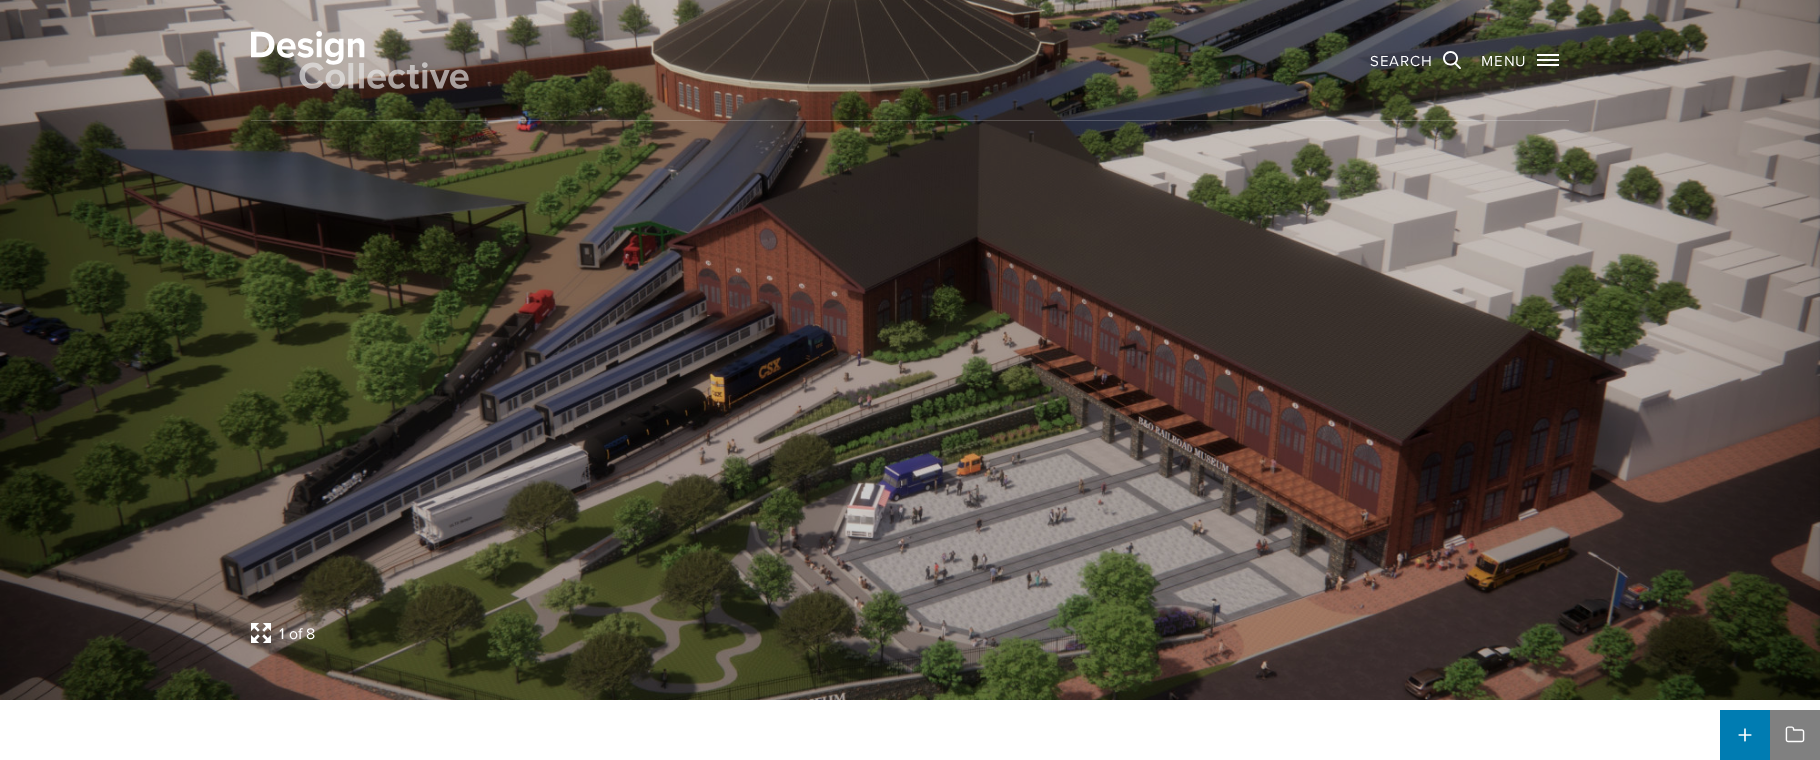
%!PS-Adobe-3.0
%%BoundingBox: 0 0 1820 760
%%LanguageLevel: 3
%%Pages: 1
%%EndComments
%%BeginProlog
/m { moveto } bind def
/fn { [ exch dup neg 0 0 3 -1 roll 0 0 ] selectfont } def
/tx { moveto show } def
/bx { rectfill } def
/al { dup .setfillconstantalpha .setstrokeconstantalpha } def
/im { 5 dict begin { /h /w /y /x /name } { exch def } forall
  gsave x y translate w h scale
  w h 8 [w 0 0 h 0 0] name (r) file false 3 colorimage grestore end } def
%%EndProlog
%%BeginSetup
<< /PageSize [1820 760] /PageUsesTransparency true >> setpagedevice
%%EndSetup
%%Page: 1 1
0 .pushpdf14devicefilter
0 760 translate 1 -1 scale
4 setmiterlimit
1 setgray
0 0 1820 760 bx
(image3.raw) 0 0 1820 700 im
0.2 al
251 120 1318 1 bx
1 al
(image0.raw) 251 31 218 58 im
/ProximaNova-Regular 15 fn
1370 66 m 1 0 (SEARCH) ashow
(image1.raw) 1443 51 18 18 im
1481 66 m 1 0 (MENU) ashow
(image2.raw) 1537 54 22 12 im
(image4.raw) 251 623 20 20 im
/ProximaNova-Regular 16 fn
(1 of 8) 279 639 tx
0 0.486 0.698 setrgbcolor
1720 710 50 50 bx
(image5.raw) 1738 728 14 14 im
0.502 setgray
1770 710 50 50 bx
(image6.raw) 1785 726 20 17 im
.poppdf14devicefilter showpage
%%EOF
